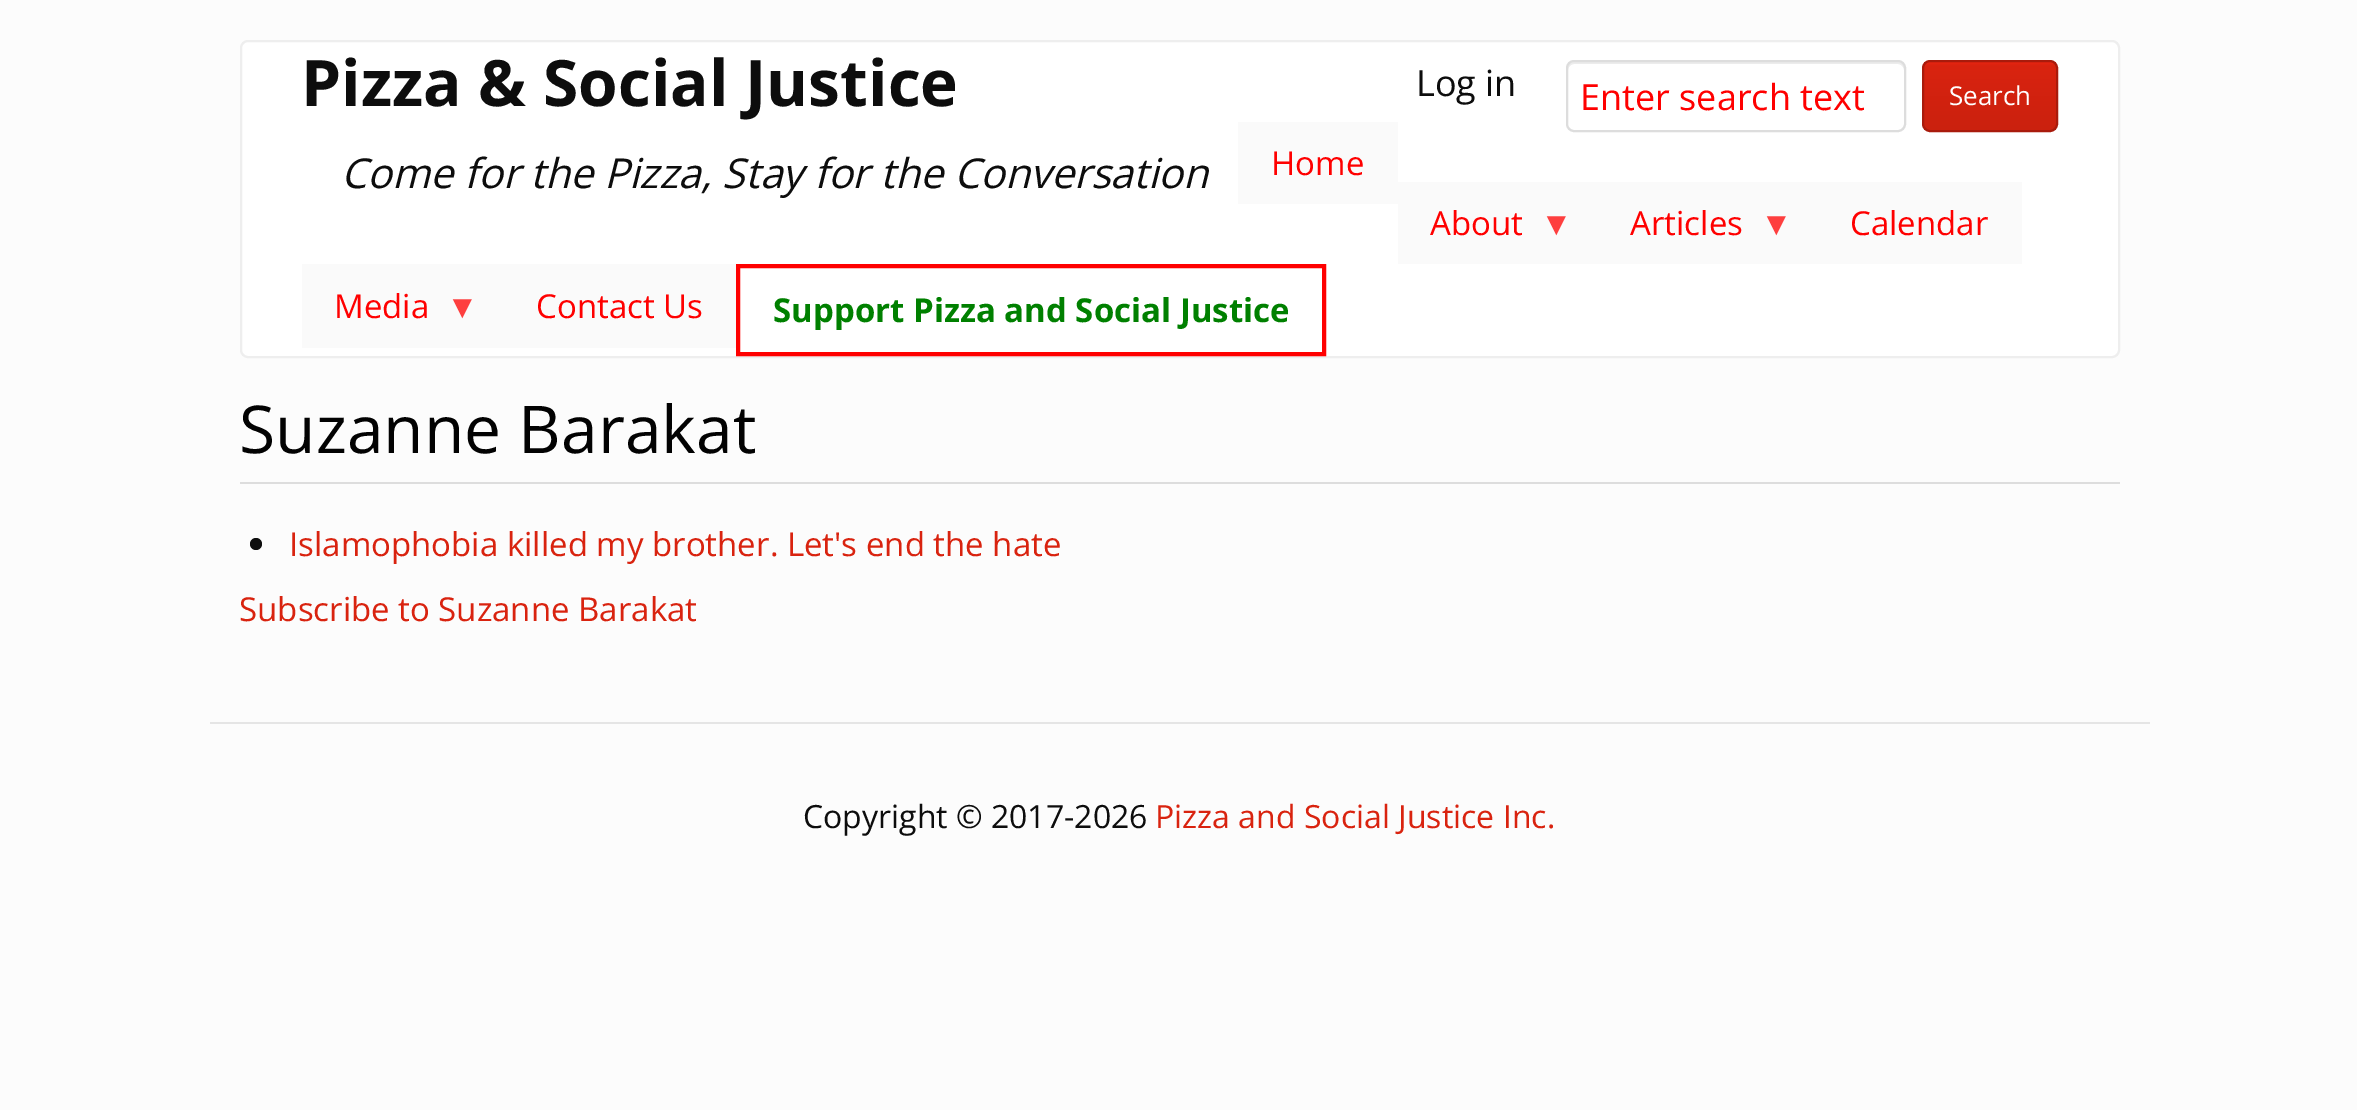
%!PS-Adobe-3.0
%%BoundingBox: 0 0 2357 1110
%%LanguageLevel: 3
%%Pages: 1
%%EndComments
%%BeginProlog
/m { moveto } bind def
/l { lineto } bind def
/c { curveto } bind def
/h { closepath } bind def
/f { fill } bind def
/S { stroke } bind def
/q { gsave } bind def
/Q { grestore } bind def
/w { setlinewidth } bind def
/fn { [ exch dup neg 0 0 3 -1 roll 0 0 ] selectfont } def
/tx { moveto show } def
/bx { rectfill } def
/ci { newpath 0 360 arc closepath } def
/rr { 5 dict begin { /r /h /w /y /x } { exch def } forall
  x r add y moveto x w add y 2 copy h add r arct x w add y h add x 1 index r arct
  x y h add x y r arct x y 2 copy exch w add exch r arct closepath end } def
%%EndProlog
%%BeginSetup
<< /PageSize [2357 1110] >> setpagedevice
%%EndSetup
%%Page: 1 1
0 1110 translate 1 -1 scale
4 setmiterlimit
0.988 setgray
0 0 2357 1110 bx
1 setgray
241 41 1878 316 7 rr q f Q
0.933 setgray
2 w
S
/OpenSans-Bold 64 fn
0.051 setgray
(Pizza & Social Justice) 301 106 tx
/OpenSans-Italic 41.25 fn
(Come for the Pizza, Stay for the Conversation) 341 188 tx
/OpenSans-Regular 36 fn
(Log in) 1416 96 tx
0.925 setgray
1574 64 m 1898 64 l 1901 64 1904 67 1904 70 c 1904 68 l 1904 65 1901 62 1898 62 c 1574 62 l 1571 62 1568 65 1568 68 c 1568 70 l 1568 67 1571 64 1574 64 c h f
0.867 setgray
1567 61 338 70 7 rr S
1 0 0 setrgbcolor
(Enter search text) 1580 110 tx
q
1922 60 136 72 8 rr clip newpath
q 1924 62 m 2056 62 l 2056 130 l 1924 130 l h clip newpath
<< /ShadingType 2 /ColorSpace /DeviceRGB /Coords [1990 62 1990 130] /Extend [true true] /Function << /FunctionType 3 /Domain [0 1] /Functions [<< /FunctionType 2 /Domain [0 1] /C0 [0.906 0.145 0.063] /C1 [0.851 0.137 0.059] /N 1 >> << /FunctionType 2 /Domain [0 1] /C0 [0.851 0.137 0.059] /C1 [0.796 0.129 0.055] /N 1 >>] /Bounds [0.06] /Encode [0 1 0 1] >> >> shfill Q
Q
0.663 0.106 0.047 setrgbcolor
1923 61 134 70 7 rr S
/OpenSans-Regular 26 fn
1 setgray
(Search) 1949 105 tx
0.98 setgray
1238 122 160 82 bx
/OpenSans-Regular 33 fn
1 0 0 setrgbcolor
(Home) 1271 175 tx
0.98 setgray
1398 182 624 82 bx
1 0 0 setrgbcolor
(About) 1430 235 tx
/LiberationSans-Regular 33 fn
0.996 0.247 0.247 setrgbcolor
(▼) 1540 235 tx
/OpenSans-Regular 33 fn
1 0 0 setrgbcolor
(Articles) 1630 235 tx
/LiberationSans-Regular 33 fn
0.996 0.247 0.247 setrgbcolor
(▼) 1760 235 tx
/OpenSans-Regular 33 fn
1 0 0 setrgbcolor
(Calendar) 1850 235 tx
0.98 setgray
302 264 434 84 bx
1 0 0 setrgbcolor
(Media) 334 318 tx
/LiberationSans-Regular 33 fn
0.996 0.247 0.247 setrgbcolor
(▼) 446 318 tx
/OpenSans-Regular 33 fn
1 0 0 setrgbcolor
(Contact Us) 536 318 tx
4 w
738 266 586 88 rectstroke
/OpenSans-Bold 33 fn
0 0.502 0 setrgbcolor
(Support Pizza and Social Justice) 773 322 tx
0.867 setgray
240 482 1880 2 bx
/OpenSans-Regular 66 fn
0.008 setgray
(Suzanne Barakat) 239 453 tx
0.051 setgray
256 544 6 ci f
/OpenSans-Regular 33 fn
0.851 0.137 0.059 setrgbcolor
(Islamophobia killed my brother. Let's end the hate) 289 556 tx
(Subscribe to Suzanne Barakat) 239 621 tx
0.898 setgray
210 722 1940 2 bx
/OpenSans-Regular 32 fn
0.051 setgray
(Copyright © 2017-2026) 803 828 tx
0.851 0.137 0.059 setrgbcolor
(Pizza and Social Justice Inc.) 1155 828 tx
showpage
%%EOF
